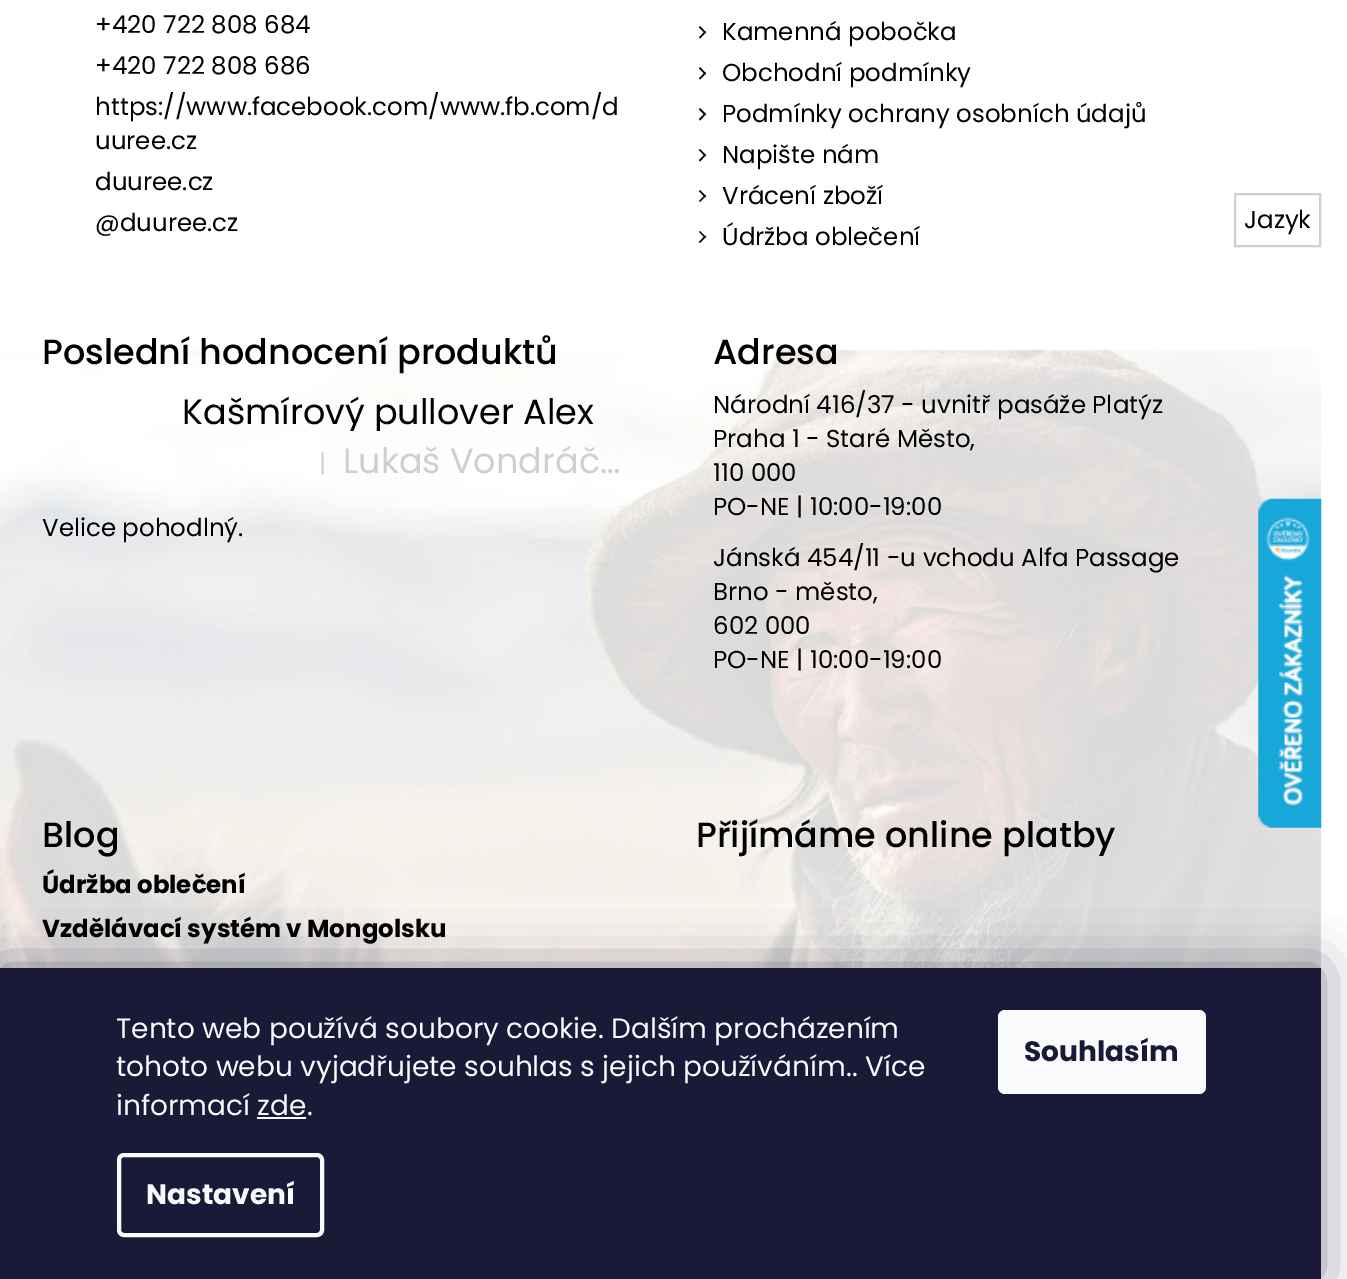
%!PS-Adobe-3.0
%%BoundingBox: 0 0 1347 1279
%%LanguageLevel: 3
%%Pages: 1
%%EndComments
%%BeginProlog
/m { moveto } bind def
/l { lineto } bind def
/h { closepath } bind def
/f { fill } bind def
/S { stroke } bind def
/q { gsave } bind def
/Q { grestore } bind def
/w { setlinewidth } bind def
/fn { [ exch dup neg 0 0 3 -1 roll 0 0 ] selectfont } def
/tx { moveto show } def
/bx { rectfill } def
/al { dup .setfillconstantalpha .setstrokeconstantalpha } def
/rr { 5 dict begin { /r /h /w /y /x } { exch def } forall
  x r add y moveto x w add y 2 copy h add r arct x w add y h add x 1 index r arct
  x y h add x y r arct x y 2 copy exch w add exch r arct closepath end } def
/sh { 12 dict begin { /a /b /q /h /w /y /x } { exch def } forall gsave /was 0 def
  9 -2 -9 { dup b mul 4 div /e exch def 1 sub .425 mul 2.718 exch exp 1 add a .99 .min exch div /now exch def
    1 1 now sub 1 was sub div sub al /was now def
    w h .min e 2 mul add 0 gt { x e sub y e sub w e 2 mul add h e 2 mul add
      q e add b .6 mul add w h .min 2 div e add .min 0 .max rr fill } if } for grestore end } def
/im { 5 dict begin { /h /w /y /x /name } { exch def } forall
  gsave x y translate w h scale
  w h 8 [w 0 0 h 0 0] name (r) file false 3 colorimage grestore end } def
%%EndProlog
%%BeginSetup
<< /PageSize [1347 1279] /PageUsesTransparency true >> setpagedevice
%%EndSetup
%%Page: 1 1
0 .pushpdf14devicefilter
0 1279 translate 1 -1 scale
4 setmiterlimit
1 setgray
0 0 1347 1279 bx
(image0.raw) 0 349 1321 619 im
/Poppins-Regular 24.5 fn
0 setgray
(+420 722 808 684) 95 33 tx
(+420 722 808 686) 95 74 tx
(https://www.facebook.com/www.fb.com/d) 95 115 tx
(uuree.cz) 95 149 tx
(duuree.cz) 95 190 tx
(@duuree.cz) 95 231 tx
699 27.5 m 700 26 l 706 32.5 l 705 33.5 l h f
699 37.5 m 705 31 l 706 32.5 l 700 38.5 l h f
(Kamenná pobočka) 722 40 tx
699 68.5 m 700 67 l 706 73.5 l 705 74.5 l h f
699 78.5 m 705 72 l 706 73.5 l 700 79.5 l h f
(Obchodní podmínky) 722 81 tx
699 109.5 m 700 108 l 706 114 l 705 115.5 l h f
699 119 m 705 113 l 706 114 l 700 120.5 l h f
(Podmínky ochrany osobních údajů) 722 122 tx
699 150 m 700 149 l 706 155 l 705 156.5 l h f
699 160 m 705 154 l 706 155 l 700 161.5 l h f
(Napište nám) 722 163 tx
699 191 m 700 190 l 706 196 l 705 197.5 l h f
699 201 m 705 195 l 706 196 l 700 202 l h f
(Vrácení zboží) 722 204 tx
699 232 m 700 231 l 706 237 l 705 238 l h f
699 242 m 705 235.5 l 706 237 l 700 243 l h f
(Údržba oblečení) 722 245 tx
/Poppins-Medium 35 fn
(Poslední hodnocení produktů) 42 364 tx
q
182 392 445 39 rectclip
/Poppins-Regular 35 fn
(Kašmírový pullover Alex) 182 424 tx
Q
/Poppins-Regular 24.5 fn
0.812 setgray
(|) 319 472 tx
/Poppins-Regular 35 fn
(Lukaš Vondráč…) 343 473 tx
/Poppins-Regular 24.5 fn
0 setgray
(Velice pohodlný.) 42 536 tx
/Poppins-Medium 35 fn
(Adresa) 713 364 tx
/Poppins-Regular 24.5 fn
(Národní 416/37 - uvnitř pasáže Platýz) 713 413 tx
(Praha 1 - Staré Město,) 713 447 tx
(110 000) 713 481 tx
(PO-NE | 10:00-19:00) 713 515 tx
(Jánská 454/11 -u vchodu Alfa Passage) 713 566 tx
(Brno - město,) 713 600 tx
(602 000) 713 634 tx
(PO-NE | 10:00-19:00) 713 668 tx
/Poppins-Medium 35 fn
(Blog) 42 847 tx
/Poppins-Bold 24.5 fn
(Údržba oblečení) 42 893 tx
(Vzdělávací systém v Mongolsku) 42 937 tx
/Poppins-Medium 35 fn
(Přijímáme online platby) 696 847 tx
0.812 setgray
2 w
1235 194 85 52 rectstroke
/Poppins-Regular 24.5 fn
0 setgray
(Jazyk) 1244 228 tx
(image1.raw) 1258 498 64 330 im
0.106 0.098 0.224 setrgbcolor
0 968 1321 311 0 26 0.5 sh
0.102 0.098 0.216 setrgbcolor
0 968 1321 311 bx
/Poppins-Regular 28 fn
0.973 0.98 0.984 setrgbcolor
(Tento web používá soubory cookie. Dalším procházením) 116 1038 tx
(tohoto webu vyjadřujete souhlas s jejich používáním.. Více) 116 1076 tx
(informací zde.) 116 1115 tx
257 1117 49 2 bx
4 w
119 1155 203 80 5 rr S
/Poppins-Bold 28 fn
(Nastavení) 146 1204 tx
998 1010 208 84 7 rr f
0.102 0.098 0.216 setrgbcolor
(Souhlasím) 1024 1061 tx
.poppdf14devicefilter showpage
%%EOF
